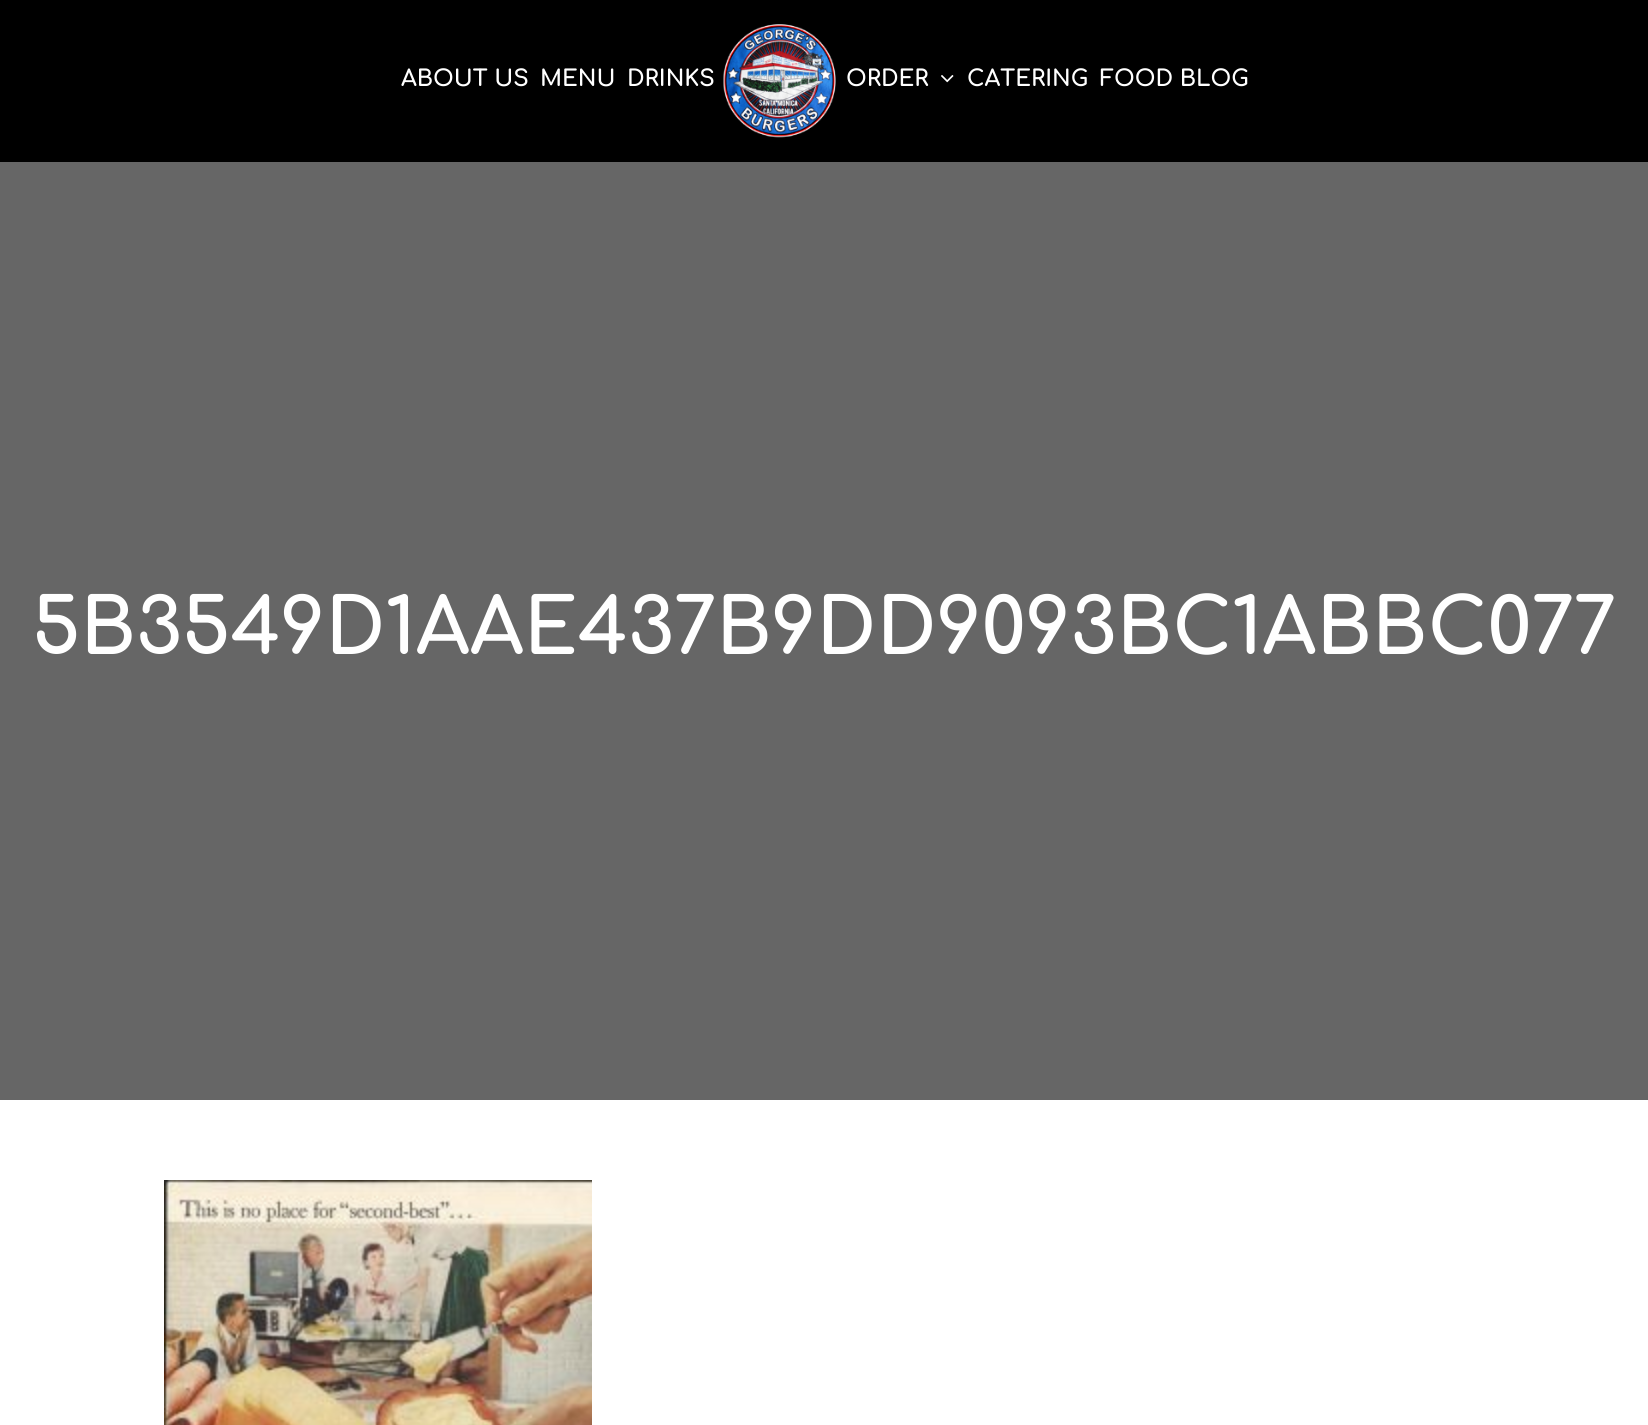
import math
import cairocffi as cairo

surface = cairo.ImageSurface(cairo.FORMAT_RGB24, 1648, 1425)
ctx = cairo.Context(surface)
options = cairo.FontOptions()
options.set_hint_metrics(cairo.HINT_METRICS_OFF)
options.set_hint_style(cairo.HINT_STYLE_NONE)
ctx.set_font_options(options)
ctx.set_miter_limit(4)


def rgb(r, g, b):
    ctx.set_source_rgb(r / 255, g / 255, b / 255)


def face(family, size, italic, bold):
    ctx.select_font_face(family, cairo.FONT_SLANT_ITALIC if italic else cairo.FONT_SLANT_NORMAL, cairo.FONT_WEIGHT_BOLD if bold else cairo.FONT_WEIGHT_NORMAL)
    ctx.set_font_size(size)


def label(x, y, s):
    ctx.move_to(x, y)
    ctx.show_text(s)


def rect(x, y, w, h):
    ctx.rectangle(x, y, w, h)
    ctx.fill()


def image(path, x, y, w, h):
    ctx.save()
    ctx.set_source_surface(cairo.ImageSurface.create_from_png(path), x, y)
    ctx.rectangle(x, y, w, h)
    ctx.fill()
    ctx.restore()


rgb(255, 255, 255)
ctx.paint()
rgb(0, 0, 0)
rect(0, 0, 1648, 162)
face('Comfortaa', 22.5, 0, 1)
rgb(255, 255, 255)
label(401, 86, 'ABOUT US')
label(540, 86, 'MENU')
label(627, 86, 'DRINKS')
image('image0.png', 723, 24, 113, 114)
label(846, 86, 'ORDER')
image('image1.png', 941, 75, 13, 8)
label(967, 86, 'CATERING')
label(1100, 86, 'FOOD BLOG')
rgb(102, 102, 102)
rect(0, 162, 1648, 938)
face('Comfortaa', 76.9, 0, 1)
rgb(255, 255, 255)
label(32, 654, '5B3549D1AAE437B9DD9093BC1ABBC077')
image('image2.png', 164, 1180, 428, 245)
surface.write_to_png('render.png')
